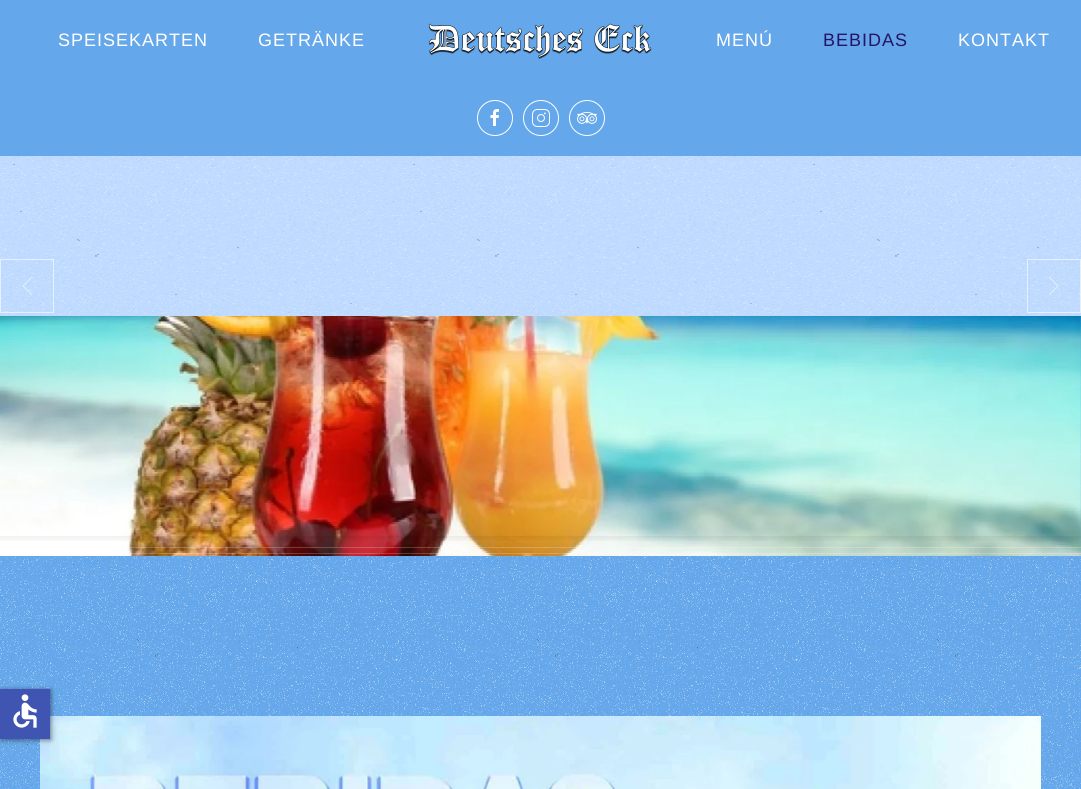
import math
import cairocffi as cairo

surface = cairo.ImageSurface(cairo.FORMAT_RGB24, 1081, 789)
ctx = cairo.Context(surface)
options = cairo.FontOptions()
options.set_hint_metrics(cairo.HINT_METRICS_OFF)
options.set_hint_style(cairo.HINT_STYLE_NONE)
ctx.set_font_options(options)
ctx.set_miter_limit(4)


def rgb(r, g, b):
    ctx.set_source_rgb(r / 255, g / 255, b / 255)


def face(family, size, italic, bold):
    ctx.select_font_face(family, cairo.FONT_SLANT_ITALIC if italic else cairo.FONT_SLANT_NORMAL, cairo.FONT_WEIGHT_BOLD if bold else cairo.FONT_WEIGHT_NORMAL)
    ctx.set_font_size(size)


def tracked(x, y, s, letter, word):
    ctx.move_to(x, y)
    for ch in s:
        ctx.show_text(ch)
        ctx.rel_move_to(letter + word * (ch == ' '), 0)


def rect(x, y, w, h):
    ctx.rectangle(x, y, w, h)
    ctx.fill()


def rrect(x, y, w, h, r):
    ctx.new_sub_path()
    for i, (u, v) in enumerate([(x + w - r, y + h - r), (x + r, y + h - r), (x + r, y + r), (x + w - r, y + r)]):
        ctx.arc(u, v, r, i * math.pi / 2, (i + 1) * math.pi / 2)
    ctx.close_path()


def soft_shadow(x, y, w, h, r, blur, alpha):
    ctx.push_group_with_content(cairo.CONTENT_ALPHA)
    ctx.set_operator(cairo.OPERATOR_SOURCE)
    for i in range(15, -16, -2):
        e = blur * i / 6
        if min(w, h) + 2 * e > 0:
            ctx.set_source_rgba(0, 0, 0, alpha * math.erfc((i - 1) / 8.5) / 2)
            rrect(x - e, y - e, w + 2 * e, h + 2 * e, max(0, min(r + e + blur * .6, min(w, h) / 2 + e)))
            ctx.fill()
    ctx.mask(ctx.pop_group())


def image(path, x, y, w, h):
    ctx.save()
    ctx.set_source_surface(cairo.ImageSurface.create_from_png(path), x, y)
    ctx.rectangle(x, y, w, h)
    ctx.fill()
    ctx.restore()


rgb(100, 167, 235)
ctx.paint()
rgb(190, 218, 255)
rect(0, 156, 1081, 160)
image('image0.png', 0, 156, 1081, 160)
image('image1.png', 1080, 320, 1, 234)
image('image2.png', 0, 316, 1081, 240)
ctx.arc(495, 118, 17.5, 0, 2 * math.pi)
rgb(255, 255, 255)
ctx.set_line_width(1)
ctx.stroke()
image('image6.png', 490, 109, 9, 17)
ctx.arc(541, 118, 17.5, 0, 2 * math.pi)
ctx.stroke()
image('image7.png', 532, 109, 18, 18)
ctx.arc(587, 118, 17.5, 0, 2 * math.pi)
ctx.stroke()
image('image8.png', 577, 112, 20, 12)
ctx.save()
ctx.rectangle(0, 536, 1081, 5)
ctx.clip()
rgb(0, 0, 0)
soft_shadow(0, 38, 1081, 500, 0, 4, 0.08)
ctx.restore()
ctx.rectangle(-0.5, 26.5, 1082, 527)
ctx.set_source_rgba(1, 1, 1, 0.2)
ctx.stroke()
ctx.rectangle(-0.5, 20.5, 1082, 527)
ctx.stroke()
ctx.rectangle(0.5, 259.5, 53, 53)
ctx.set_source_rgba(1, 1, 1, 0.6)
ctx.stroke()
ctx.new_path()
ctx.move_to(32, 277)
ctx.line_to(23, 286)
ctx.line_to(32, 295)
ctx.set_source_rgba(1, 1, 1, 0.5)
ctx.set_line_width(1.1)
ctx.stroke()
ctx.rectangle(1027.5, 259.5, 53, 53)
ctx.set_source_rgba(1, 1, 1, 0.6)
ctx.set_line_width(1)
ctx.stroke()
ctx.new_path()
ctx.move_to(1049, 295)
ctx.line_to(1058, 286)
ctx.line_to(1049, 277)
ctx.set_source_rgba(1, 1, 1, 0.5)
ctx.set_line_width(1.1)
ctx.stroke()
image('image3.png', 0, 556, 1081, 233)
image('image4.png', 40, 716, 1001, 73)
rgb(100, 167, 235)
rect(0, 20, 1081, 16)
face('Liberation Sans', 18, 0, 0)
rgb(255, 255, 255)
tracked(58, 46, 'SPEISEKARTEN', 1, 0)
tracked(258, 46, 'GETRÄNKE', 1, 0)
image('image5.png', 428, 23, 224, 36)
tracked(716, 46, 'MENÚ', 1, 0)
rgb(38, 20, 103)
tracked(823, 46, 'BEBIDAS', 1, 0)
rgb(255, 255, 255)
tracked(958, 46, 'KONTAKT', 1, 0)
rgb(0, 0, 0)
soft_shadow(1, 690, 50, 50, 0, 2.5, 0.5)
rgb(64, 84, 178)
rect(0, 689, 50, 50)
image('image9.png', 13, 694, 24, 34)
surface.write_to_png('render.png')
